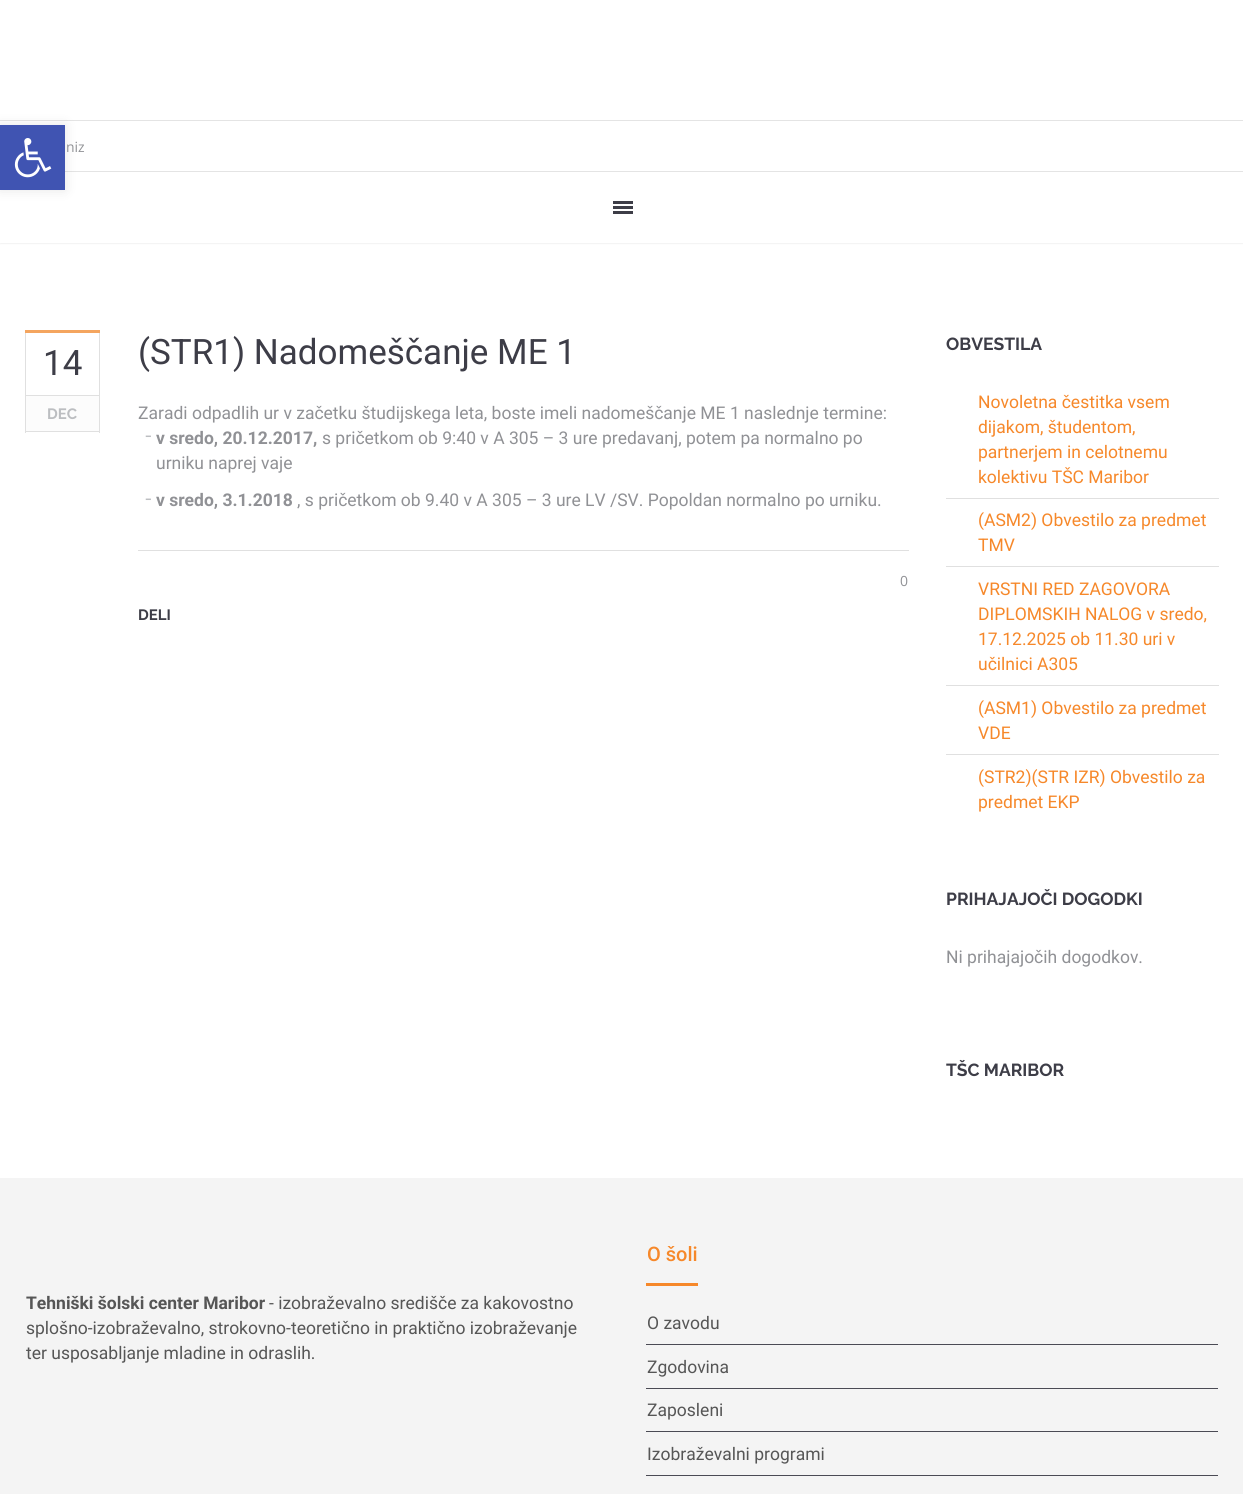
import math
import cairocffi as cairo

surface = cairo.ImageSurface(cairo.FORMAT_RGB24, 1243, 1494)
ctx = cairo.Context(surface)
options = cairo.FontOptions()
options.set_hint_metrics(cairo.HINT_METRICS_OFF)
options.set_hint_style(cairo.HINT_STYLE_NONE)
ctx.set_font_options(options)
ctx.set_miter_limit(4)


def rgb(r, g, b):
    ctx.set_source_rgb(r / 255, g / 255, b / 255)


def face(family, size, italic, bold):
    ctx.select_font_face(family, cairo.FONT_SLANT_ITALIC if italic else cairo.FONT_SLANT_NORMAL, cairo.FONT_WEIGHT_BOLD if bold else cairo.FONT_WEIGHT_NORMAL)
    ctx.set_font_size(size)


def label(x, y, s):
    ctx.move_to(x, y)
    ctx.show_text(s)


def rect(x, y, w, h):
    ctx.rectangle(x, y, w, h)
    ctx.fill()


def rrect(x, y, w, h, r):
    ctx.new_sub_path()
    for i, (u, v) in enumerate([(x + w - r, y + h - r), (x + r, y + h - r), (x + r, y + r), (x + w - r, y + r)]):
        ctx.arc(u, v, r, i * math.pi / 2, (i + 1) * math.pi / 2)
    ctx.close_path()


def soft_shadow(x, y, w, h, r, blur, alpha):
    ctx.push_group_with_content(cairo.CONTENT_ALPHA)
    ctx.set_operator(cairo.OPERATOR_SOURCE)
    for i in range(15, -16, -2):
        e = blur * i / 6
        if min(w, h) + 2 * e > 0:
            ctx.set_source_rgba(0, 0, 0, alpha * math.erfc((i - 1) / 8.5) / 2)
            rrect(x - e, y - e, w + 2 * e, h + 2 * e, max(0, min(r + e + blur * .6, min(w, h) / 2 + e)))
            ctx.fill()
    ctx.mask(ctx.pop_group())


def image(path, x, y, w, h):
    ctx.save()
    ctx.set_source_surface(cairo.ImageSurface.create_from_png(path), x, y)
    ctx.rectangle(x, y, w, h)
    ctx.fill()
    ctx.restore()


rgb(255, 255, 255)
ctx.paint()
ctx.save()
ctx.set_fill_rule(cairo.FILL_RULE_EVEN_ODD)
ctx.new_path()
ctx.move_to(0, 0)
ctx.line_to(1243, 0)
ctx.line_to(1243, 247)
ctx.line_to(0, 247)
ctx.close_path()
ctx.move_to(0, -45)
ctx.line_to(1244, -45)
ctx.line_to(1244, 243)
ctx.line_to(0, 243)
ctx.close_path()
ctx.clip()
rgb(0, 0, 0)
soft_shadow(0, -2, 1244, 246, 0, 0.5, 0.05)
ctx.restore()
rgb(228, 228, 228)
rect(0, 120, 1243, 1)
rect(65, 171, 1178, 1)
rgb(0, 0, 0)
soft_shadow(0, 125, 65, 65, 0, 6, 0.1)
rgb(64, 84, 178)
rect(0, 125, 65, 65)
image('image0.png', 14, 138, 38, 40)
ctx.set_source_rgba(1, 1, 1, 0.9)
rect(0, 242, 1243, 1)
face('Open Sans', 14, 0, 0)
rgb(144, 145, 149)
label(66, 152, 'niz')
rgb(61, 61, 71)
rect(613, 201, 20, 3)
rect(613, 211, 20, 3)
rect(613, 206, 20, 3)
rgb(244, 165, 95)
rect(25, 330, 75, 3)
rgb(224, 224, 224)
rect(99, 333, 1, 100)
rect(25, 431, 75, 1)
rect(25, 333, 1, 100)
face('Roboto', 35, 0, 0)
rgb(61, 61, 71)
label(43, 375, '14')
rgb(252, 252, 252)
rect(26, 396, 73, 35)
rgb(224, 224, 224)
rect(26, 395, 73, 1)
face('Raleway', 15, 0, 1)
rgb(188, 190, 193)
label(47, 419, 'DEC')
face('Roboto', 35, 0, 0)
rgb(61, 61, 71)
label(138, 364, '(STR1) Nadomeščanje ME 1')
face('Roboto', 17.5, 0, 0)
rgb(144, 145, 149)
label(138, 419, 'Zaradi odpadlih ur v začetku študijskega leta, boste imeli nadomeščanje ME 1 naslednje termine:')
face('Liberation Serif', 20, 0, 0)
rgb(188, 190, 193)
label(145, 441, '-')
face('Roboto', 17.5, 0, 1)
rgb(144, 145, 149)
label(156, 444, 'v sredo, 20.12.2017,')
face('Roboto', 17.5, 0, 0)
label(322, 444, 's pričetkom ob 9:40 v A 305 – 3 ure predavanj, potem pa normalno po')
label(156, 469, 'urniku naprej vaje')
face('Liberation Serif', 20, 0, 0)
rgb(188, 190, 193)
label(145, 504, '-')
face('Roboto', 17.5, 0, 1)
rgb(144, 145, 149)
label(156, 506, 'v sredo, 3.1.2018')
face('Roboto', 17.5, 0, 0)
label(297, 506, ', s pričetkom ob 9.40 v A 305 – 3 ure LV /SV. Popoldan normalno po urniku.')
rgb(224, 224, 224)
rect(138, 550, 771, 1)
face('Open Sans', 14, 0, 0)
rgb(144, 145, 149)
label(900, 586, '0')
face('Raleway', 15, 0, 1)
rgb(61, 61, 71)
label(138, 620, 'DELI')
face('Raleway', 17.5, 0, 1)
label(946, 350, 'OBVESTILA')
face('Roboto', 17.5, 0, 0)
rgb(246, 136, 42)
label(978, 408, 'Novoletna čestitka vsem')
label(978, 433, 'dijakom, študentom,')
label(978, 458, 'partnerjem in celotnemu')
label(978, 483, 'kolektivu TŠC Maribor')
rgb(224, 224, 224)
rect(946, 498, 273, 1)
rgb(246, 136, 42)
label(978, 526, '(ASM2) Obvestilo za predmet')
label(978, 551, 'TMV')
rgb(224, 224, 224)
rect(946, 566, 273, 1)
rgb(246, 136, 42)
label(978, 595, 'VRSTNI RED ZAGOVORA')
label(978, 620, 'DIPLOMSKIH NALOG v sredo,')
label(978, 645, '17.12.2025 ob 11.30 uri v')
label(978, 670, 'učilnici A305')
rgb(224, 224, 224)
rect(946, 685, 273, 1)
rgb(246, 136, 42)
label(978, 714, '(ASM1) Obvestilo za predmet')
label(978, 739, 'VDE')
rgb(224, 224, 224)
rect(946, 754, 273, 1)
rgb(246, 136, 42)
label(978, 783, '(STR2)(STR IZR) Obvestilo za')
label(978, 808, 'predmet EKP')
face('Raleway', 17.5, 0, 1)
rgb(61, 61, 71)
label(946, 905, 'PRIHAJAJOČI DOGODKI')
face('Roboto', 17.5, 0, 0)
rgb(144, 145, 149)
label(946, 963, 'Ni prihajajočih dogodkov.')
face('Raleway', 17.5, 0, 1)
rgb(61, 61, 71)
label(946, 1076, 'TŠC MARIBOR')
rgb(244, 244, 244)
rect(0, 1178, 1243, 316)
face('Roboto', 17.5, 0, 1)
rgb(86, 86, 86)
label(26, 1309, 'Tehniški šolski center Maribor')
face('Roboto', 17.5, 0, 0)
label(269, 1309, '- izobraževalno središče za kakovostno')
label(26, 1334, 'splošno-izobraževalno, strokovno-teoretično in praktično izobraževanje')
label(26, 1359, 'ter usposabljanje mladine in odraslih.')
rgb(246, 136, 42)
rect(646, 1283, 52, 3)
face('Roboto Medium', 20, 0, 0)
label(647, 1261, 'O šoli')
face('Roboto', 17.5, 0, 0)
rgb(86, 86, 86)
label(647, 1329, 'O zavodu')
rgb(75, 75, 84)
rect(646, 1344, 572, 1)
rgb(86, 86, 86)
label(647, 1373, 'Zgodovina')
rgb(75, 75, 84)
rect(646, 1388, 572, 1)
rgb(86, 86, 86)
label(647, 1416, 'Zaposleni')
rgb(75, 75, 84)
rect(646, 1431, 572, 1)
rgb(86, 86, 86)
label(647, 1460, 'Izobraževalni programi')
rgb(75, 75, 84)
rect(646, 1475, 572, 1)
surface.write_to_png('render.png')
